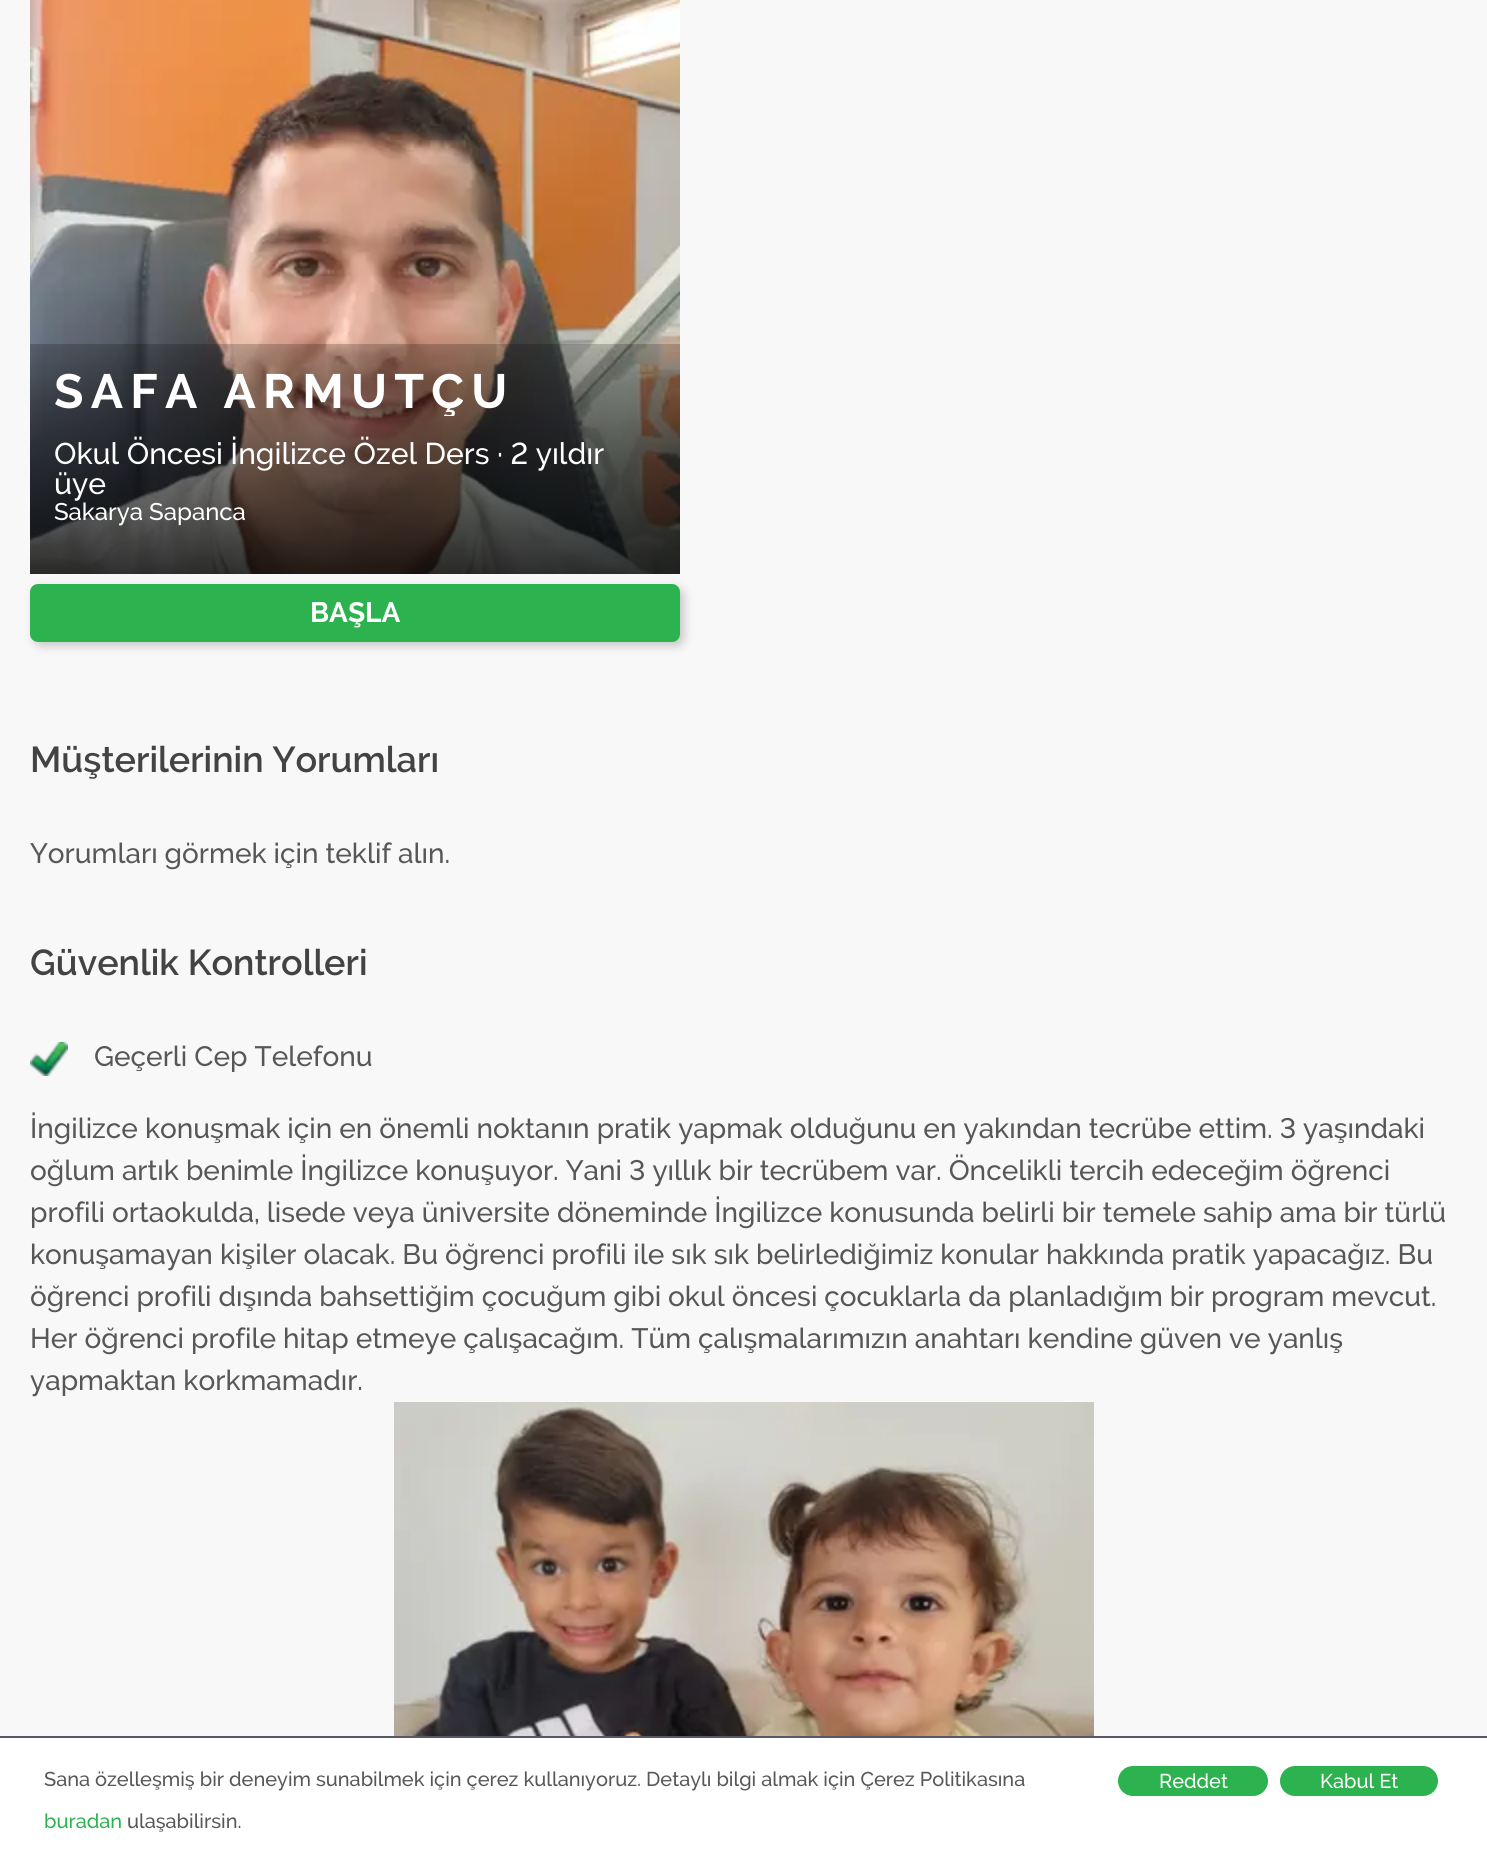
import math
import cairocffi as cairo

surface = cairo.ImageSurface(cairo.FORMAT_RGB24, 1487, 1869)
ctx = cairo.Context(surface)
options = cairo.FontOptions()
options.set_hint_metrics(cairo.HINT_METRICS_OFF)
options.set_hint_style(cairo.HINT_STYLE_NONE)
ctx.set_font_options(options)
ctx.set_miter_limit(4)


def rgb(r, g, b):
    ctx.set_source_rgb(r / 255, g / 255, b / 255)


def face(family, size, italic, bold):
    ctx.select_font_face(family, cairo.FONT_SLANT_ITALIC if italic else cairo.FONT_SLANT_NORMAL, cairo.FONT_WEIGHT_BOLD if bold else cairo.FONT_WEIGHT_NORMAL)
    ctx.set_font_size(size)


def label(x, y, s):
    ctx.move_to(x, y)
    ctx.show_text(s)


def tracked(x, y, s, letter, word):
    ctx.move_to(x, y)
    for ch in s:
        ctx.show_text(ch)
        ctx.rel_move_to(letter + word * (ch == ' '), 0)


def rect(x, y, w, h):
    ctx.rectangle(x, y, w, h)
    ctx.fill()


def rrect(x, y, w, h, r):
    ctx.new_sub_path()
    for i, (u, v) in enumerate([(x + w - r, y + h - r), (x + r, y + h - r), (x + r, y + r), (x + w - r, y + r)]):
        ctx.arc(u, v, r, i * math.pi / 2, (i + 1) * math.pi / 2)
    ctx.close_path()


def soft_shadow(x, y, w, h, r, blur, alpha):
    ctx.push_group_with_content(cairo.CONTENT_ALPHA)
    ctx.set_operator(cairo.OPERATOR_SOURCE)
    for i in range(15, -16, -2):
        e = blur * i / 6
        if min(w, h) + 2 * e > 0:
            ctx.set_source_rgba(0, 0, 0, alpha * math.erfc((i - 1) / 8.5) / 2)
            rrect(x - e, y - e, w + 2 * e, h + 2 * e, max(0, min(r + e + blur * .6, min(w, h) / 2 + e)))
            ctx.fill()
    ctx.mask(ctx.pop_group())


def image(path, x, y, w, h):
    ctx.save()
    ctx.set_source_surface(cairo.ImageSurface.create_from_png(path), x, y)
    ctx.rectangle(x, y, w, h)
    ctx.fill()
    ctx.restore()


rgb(248, 248, 248)
ctx.paint()
image('image0.png', 30, 0, 650, 574)
ctx.save()
ctx.rectangle(54, 368, 602, 48)
ctx.clip()
face('Raleway', 48, 0, 1)
rgb(255, 255, 255)
tracked(54, 408, 'SAFA ARMUTÇU', 7.25, 0)
ctx.restore()
face('Raleway Medium', 30, 0, 0)
rgb(255, 255, 255)
label(54, 464, 'Okul Öncesi İngilizce Özel Ders · 2 yıldır')
label(54, 494, 'üye')
face('Raleway Medium', 24, 0, 0)
label(54, 520, 'Sakarya Sapanca')
rgb(0, 0, 0)
soft_shadow(34, 588, 650, 58, 8, 5, 0.2)
rgb(44, 179, 79)
rrect(30, 584, 650, 58, 8)
ctx.fill()
face('Raleway', 28, 0, 1)
rgb(255, 255, 255)
label(310, 622, 'BAŞLA')
face('Raleway SemiBold', 36, 0, 0)
rgb(67, 67, 67)
label(30, 772, 'Müşterilerinin Yorumları')
face('Raleway Medium', 28, 0, 0)
rgb(87, 87, 87)
label(30, 863, 'Yorumları görmek için teklif alın.')
face('Raleway SemiBold', 36, 0, 0)
rgb(67, 67, 67)
label(30, 975, 'Güvenlik Kontrolleri')
image('image1.png', 30, 1042, 38, 34)
face('Raleway Medium', 28, 0, 0)
rgb(87, 87, 87)
label(94, 1066, 'Geçerli Cep Telefonu')
label(30, 1138, 'İngilizce konuşmak için en önemli noktanın pratik yapmak olduğunu en yakından tecrübe ettim. 3 yaşındaki')
label(30, 1180, 'oğlum artık benimle İngilizce konuşuyor. Yani 3 yıllık bir tecrübem var. Öncelikli tercih edeceğim öğrenci')
label(30, 1222, 'profili ortaokulda, lisede veya üniversite döneminde İngilizce konusunda belirli bir temele sahip ama bir türlü')
label(30, 1264, 'konuşamayan kişiler olacak. Bu öğrenci profili ile sık sık belirlediğimiz konular hakkında pratik yapacağız. Bu')
label(30, 1306, 'öğrenci profili dışında bahsettiğim çocuğum gibi okul öncesi çocuklarla da planladığım bir program mevcut.')
label(30, 1348, 'Her öğrenci profile hitap etmeye çalışacağım. Tüm çalışmalarımızın anahtarı kendine güven ve yanlış')
label(30, 1390, 'yapmaktan korkmamadır.')
image('image2.png', 394, 1402, 700, 334)
rgb(255, 255, 255)
rect(0, 1738, 1487, 131)
rgb(88, 89, 101)
rect(0, 1736, 1487, 2)
face('Raleway Medium', 20, 0, 0)
rgb(87, 87, 87)
label(44, 1786, 'Sana özelleşmiş bir deneyim sunabilmek için çerez kullanıyoruz. Detaylı bilgi almak için Çerez Politikasına')
rgb(44, 179, 79)
label(44, 1828, 'buradan')
rgb(87, 87, 87)
label(127, 1828, 'ulaşabilirsin.')
rgb(44, 179, 79)
rrect(1118, 1766, 150, 30, 15)
ctx.fill()
rgb(255, 255, 255)
label(1159, 1788, 'Reddet')
rgb(44, 179, 79)
rrect(1280, 1766, 158, 30, 15)
ctx.fill()
rgb(255, 255, 255)
label(1320, 1788, 'Kabul Et')
surface.write_to_png('render.png')
